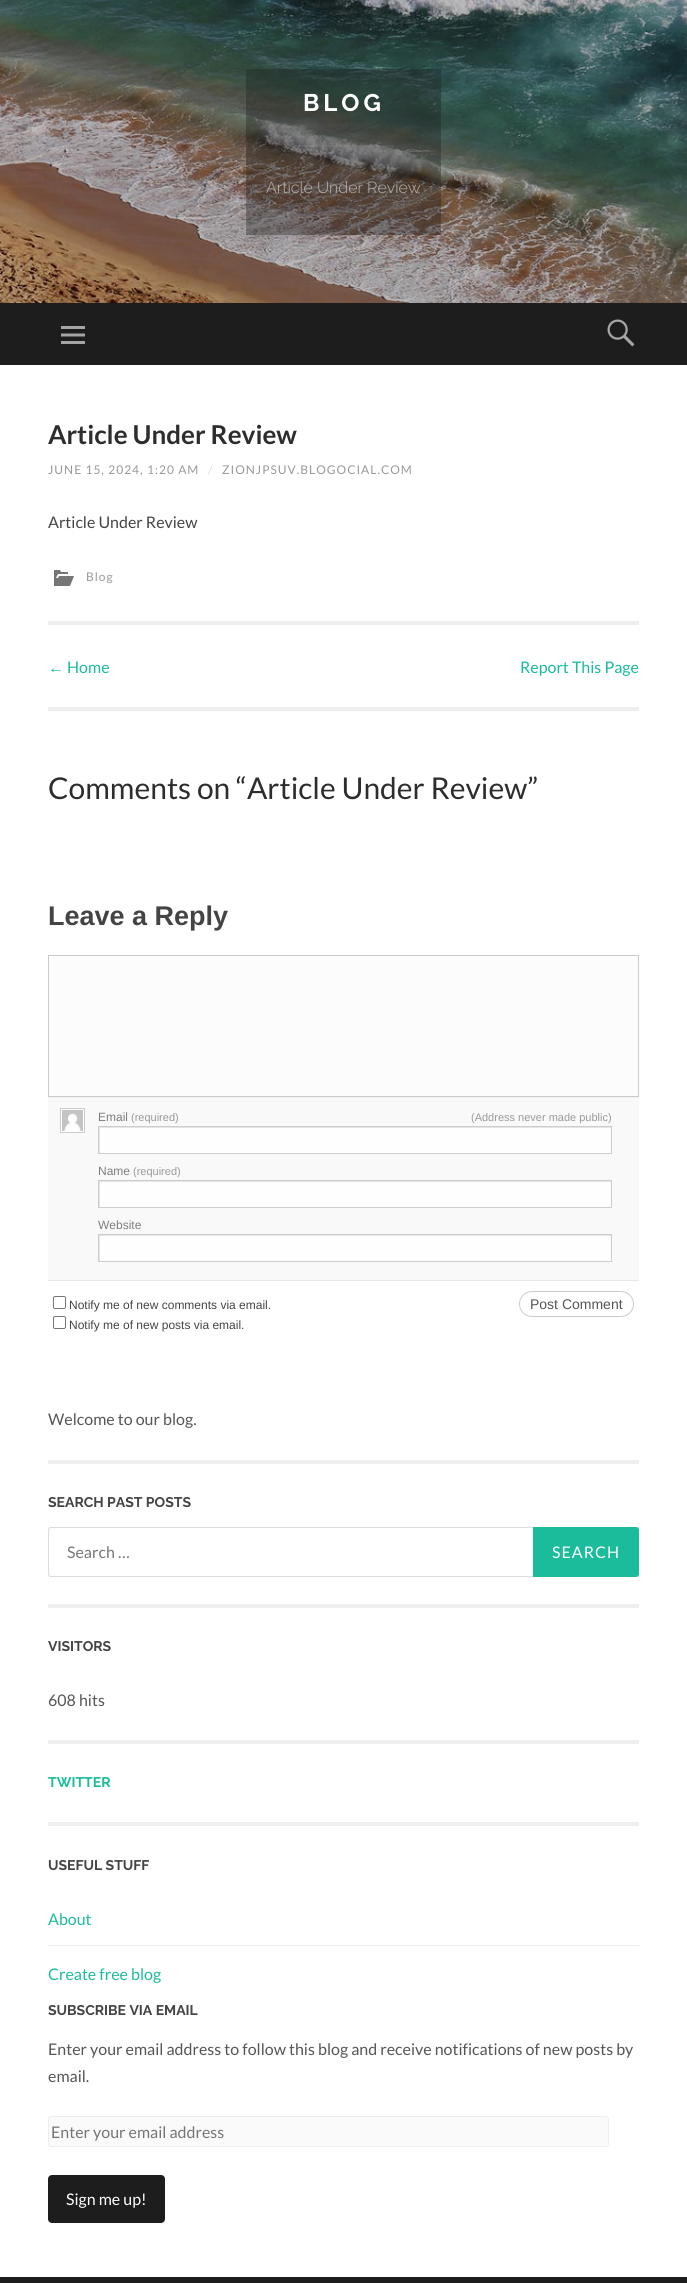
import math
import cairocffi as cairo

surface = cairo.ImageSurface(cairo.FORMAT_RGB24, 687, 2283)
ctx = cairo.Context(surface)
options = cairo.FontOptions()
options.set_hint_metrics(cairo.HINT_METRICS_OFF)
options.set_hint_style(cairo.HINT_STYLE_NONE)
ctx.set_font_options(options)
ctx.set_miter_limit(4)


def rgb(r, g, b):
    ctx.set_source_rgb(r / 255, g / 255, b / 255)


def face(family, size, italic, bold):
    ctx.select_font_face(family, cairo.FONT_SLANT_ITALIC if italic else cairo.FONT_SLANT_NORMAL, cairo.FONT_WEIGHT_BOLD if bold else cairo.FONT_WEIGHT_NORMAL)
    ctx.set_font_size(size)


def label(x, y, s):
    ctx.move_to(x, y)
    ctx.show_text(s)


def tracked(x, y, s, letter, word):
    ctx.move_to(x, y)
    for ch in s:
        ctx.show_text(ch)
        ctx.rel_move_to(letter + word * (ch == ' '), 0)


def rect(x, y, w, h):
    ctx.rectangle(x, y, w, h)
    ctx.fill()


def rrect(x, y, w, h, r):
    ctx.new_sub_path()
    for i, (u, v) in enumerate([(x + w - r, y + h - r), (x + r, y + h - r), (x + r, y + r), (x + w - r, y + r)]):
        ctx.arc(u, v, r, i * math.pi / 2, (i + 1) * math.pi / 2)
    ctx.close_path()


def image(path, x, y, w, h):
    ctx.save()
    ctx.set_source_surface(cairo.ImageSurface.create_from_png(path), x, y)
    ctx.rectangle(x, y, w, h)
    ctx.fill()
    ctx.restore()


rgb(255, 255, 255)
ctx.paint()
image('image0.png', 0, 0, 687, 303)
ctx.set_source_rgba(0.114, 0.114, 0.114, 0.34)
rect(246, 69, 195, 166)
face('Raleway', 24, 0, 1)
rgb(255, 255, 255)
tracked(303, 111, 'BLOG', 4, 0)
ctx.set_source_rgba(1, 1, 1, 0.06)
rect(294, 145, 100, 2)
face('Raleway Light', 16, 0, 0)
rgb(188, 183, 179)
label(266, 193, 'Article Under Review')
rgb(29, 29, 29)
rect(0, 303, 687, 62)
image('image1.png', 61, 326, 24, 18)
image('image2.png', 607, 319, 28, 28)
face('Lato', 26, 0, 1)
rgb(45, 45, 45)
label(48, 444, 'Article Under Review')
face('Lato', 12, 0, 0)
rgb(153, 153, 153)
tracked(48, 474, 'JUNE 15, 2024, 1:20 AM', 1, 0)
rgb(221, 221, 221)
tracked(208, 474, '/', 1, 0)
rgb(153, 153, 153)
tracked(222, 474, 'ZIONJPSUV.BLOGOCIAL.COM', 1, 0)
face('Lato', 16, 0, 0)
rgb(68, 68, 68)
label(48, 528, 'Article Under Review')
image('image3.png', 54, 570, 20, 16)
face('Lato', 12, 0, 0)
rgb(153, 153, 153)
tracked(86, 581, 'Blog', 1, 0)
rgb(238, 238, 238)
rect(48, 621, 591, 4)
rect(48, 707, 591, 4)
face('Liberation Sans', 16, 0, 0)
rgb(26, 188, 156)
label(48, 673, '←')
face('Lato', 16, 0, 0)
label(67, 673, 'Home')
label(520, 673, 'Report This Page')
face('Lato', 30, 0, 0)
rgb(45, 45, 45)
label(48, 799, 'Comments on “Article Under Review”')
face('Liberation Sans', 27, 0, 1)
rgb(68, 68, 68)
label(48, 925, 'Leave a Reply')
rgb(252, 252, 252)
ctx.rectangle(48.5, 955.5, 590, 141)
ctx.fill_preserve()
rgb(202, 202, 202)
ctx.set_line_width(1)
ctx.stroke()
rgb(242, 242, 242)
rect(48, 1097, 591, 1)
rgb(249, 249, 249)
rect(48, 1098, 591, 182)
rgb(232, 232, 232)
rect(48, 1280, 591, 1)
rgb(255, 255, 255)
ctx.rectangle(60.5, 1108.5, 24, 24)
ctx.fill_preserve()
rgb(204, 204, 204)
ctx.stroke()
image('image4.png', 62, 1110, 21, 21)
face('Liberation Sans', 12, 0, 0)
rgb(125, 125, 125)
label(98, 1121, 'Email')
face('Liberation Sans', 11, 0, 0)
rgb(153, 153, 153)
label(131, 1121, '(required)')
label(471, 1121, '(Address never made public)')
rgb(254, 254, 254)
rect(100, 1128, 511, 25)
ctx.save()
ctx.rectangle(99, 1127, 512, 26)
ctx.clip()
rgb(229, 229, 229)
ctx.set_fill_rule(cairo.FILL_RULE_EVEN_ODD)
ctx.new_path()
ctx.move_to(0, 1028)
ctx.line_to(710, 1028)
ctx.line_to(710, 1252)
ctx.line_to(0, 1252)
ctx.close_path()
ctx.move_to(100, 1128)
ctx.line_to(612, 1128)
ctx.line_to(612, 1154)
ctx.line_to(100, 1154)
ctx.close_path()
ctx.fill()
ctx.restore()
ctx.rectangle(98.5, 1126.5, 513, 27)
rgb(205, 205, 205)
ctx.stroke()
face('Liberation Sans', 12, 0, 0)
rgb(125, 125, 125)
label(98, 1175, 'Name')
face('Liberation Sans', 11, 0, 0)
rgb(153, 153, 153)
label(133, 1175, '(required)')
rgb(254, 254, 254)
rect(100, 1182, 511, 25)
ctx.save()
ctx.rectangle(99, 1181, 512, 26)
ctx.clip()
rgb(229, 229, 229)
ctx.set_fill_rule(cairo.FILL_RULE_EVEN_ODD)
ctx.new_path()
ctx.move_to(0, 1082)
ctx.line_to(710, 1082)
ctx.line_to(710, 1306)
ctx.line_to(0, 1306)
ctx.close_path()
ctx.move_to(100, 1182)
ctx.line_to(612, 1182)
ctx.line_to(612, 1208)
ctx.line_to(100, 1208)
ctx.close_path()
ctx.fill()
ctx.restore()
ctx.rectangle(98.5, 1180.5, 513, 27)
rgb(205, 205, 205)
ctx.stroke()
face('Liberation Sans', 12, 0, 0)
rgb(125, 125, 125)
label(98, 1229, 'Website')
rgb(254, 254, 254)
rect(100, 1236, 511, 25)
ctx.save()
ctx.rectangle(99, 1235, 512, 26)
ctx.clip()
rgb(229, 229, 229)
ctx.set_fill_rule(cairo.FILL_RULE_EVEN_ODD)
ctx.new_path()
ctx.move_to(0, 1136)
ctx.line_to(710, 1136)
ctx.line_to(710, 1360)
ctx.line_to(0, 1360)
ctx.close_path()
ctx.move_to(100, 1236)
ctx.line_to(612, 1236)
ctx.line_to(612, 1262)
ctx.line_to(100, 1262)
ctx.close_path()
ctx.fill()
ctx.restore()
ctx.rectangle(98.5, 1234.5, 513, 27)
rgb(205, 205, 205)
ctx.stroke()
rrect(53.5, 1296.5, 12, 12, 1.5)
rgb(118, 118, 118)
ctx.stroke()
rgb(68, 68, 68)
label(69, 1309, 'Notify me of new comments via email.')
rrect(53.5, 1316.5, 12, 12, 1.5)
rgb(118, 118, 118)
ctx.stroke()
rgb(68, 68, 68)
label(69, 1329, 'Notify me of new posts via email.')
rrect(519.5, 1291.5, 114, 25, 12.5)
rgb(204, 204, 204)
ctx.stroke()
face('Liberation Sans', 14, 0, 0)
rgb(85, 85, 85)
label(530, 1309, 'Post Comment')
rgb(238, 238, 238)
rect(48, 1460, 591, 4)
face('Lato', 16, 0, 0)
rgb(85, 85, 85)
label(48, 1425, 'Welcome to our blog.')
rgb(238, 238, 238)
rect(48, 1604, 591, 4)
face('Raleway', 14, 0, 1)
rgb(68, 68, 68)
label(48, 1507, 'SEARCH PAST POSTS')
rgb(221, 221, 221)
ctx.set_fill_rule(cairo.FILL_RULE_EVEN_ODD)
ctx.new_path()
ctx.move_to(51, 1527)
ctx.line_to(633, 1527)
ctx.line_to(633, 1577)
ctx.line_to(51, 1577)
ctx.curve_to(49, 1577, 48, 1576, 48, 1574)
ctx.line_to(48, 1530)
ctx.curve_to(48, 1528, 49, 1527, 51, 1527)
ctx.close_path()
ctx.move_to(51, 1528)
ctx.line_to(633, 1528)
ctx.line_to(633, 1576)
ctx.line_to(51, 1576)
ctx.curve_to(50, 1576, 49, 1575, 49, 1574)
ctx.line_to(49, 1530)
ctx.curve_to(49, 1529, 50, 1528, 51, 1528)
ctx.close_path()
ctx.fill()
face('Lato', 16, 0, 0)
rgb(117, 117, 117)
label(67, 1558, 'Search …')
rgb(26, 188, 156)
ctx.new_path()
ctx.move_to(533.5, 1527.5)
ctx.line_to(636, 1527.5)
ctx.curve_to(637.5, 1527.5, 638.5, 1528.5, 638.5, 1530)
ctx.line_to(638.5, 1574)
ctx.curve_to(638.5, 1575.5, 637.5, 1576.5, 636, 1576.5)
ctx.line_to(533.5, 1576.5)
ctx.close_path()
ctx.fill_preserve()
ctx.stroke()
rgb(255, 255, 255)
tracked(552, 1558, 'SEARCH', 1, 0)
rgb(238, 238, 238)
rect(48, 1740, 591, 4)
face('Raleway', 14, 0, 1)
rgb(68, 68, 68)
label(48, 1651, 'VISITORS')
face('Lato', 16, 0, 0)
rgb(85, 85, 85)
label(48, 1706, '608 hits')
rgb(238, 238, 238)
rect(48, 1822, 591, 4)
face('Raleway', 14, 0, 1)
rgb(26, 188, 156)
label(48, 1787, 'TWITTER')
rgb(68, 68, 68)
label(48, 1870, 'USEFUL STUFF')
face('Lato', 16, 0, 0)
rgb(26, 188, 156)
label(48, 1925, 'About')
rgb(238, 238, 238)
rect(48, 1945, 591, 1)
rgb(26, 188, 156)
label(48, 1980, 'Create free blog')
face('Raleway', 14, 0, 1)
rgb(68, 68, 68)
label(48, 2015, 'SUBSCRIBE VIA EMAIL')
face('Lato', 16, 0, 0)
rgb(85, 85, 85)
label(48, 2055, 'Enter your email address to follow this blog and receive notifications of new posts by')
label(48, 2082, 'email.')
rgb(250, 250, 250)
rrect(48.5, 2116.5, 560, 30, 2.5)
ctx.fill_preserve()
rgb(238, 238, 238)
ctx.stroke()
rgb(117, 117, 117)
label(51, 2138, 'Enter your email address')
rgb(29, 29, 29)
rrect(48, 2175, 117, 48, 4)
ctx.fill()
rgb(255, 255, 255)
label(66, 2205, 'Sign me up!')
rgb(29, 29, 29)
rect(0, 2277, 687, 6)
surface.write_to_png('render.png')
